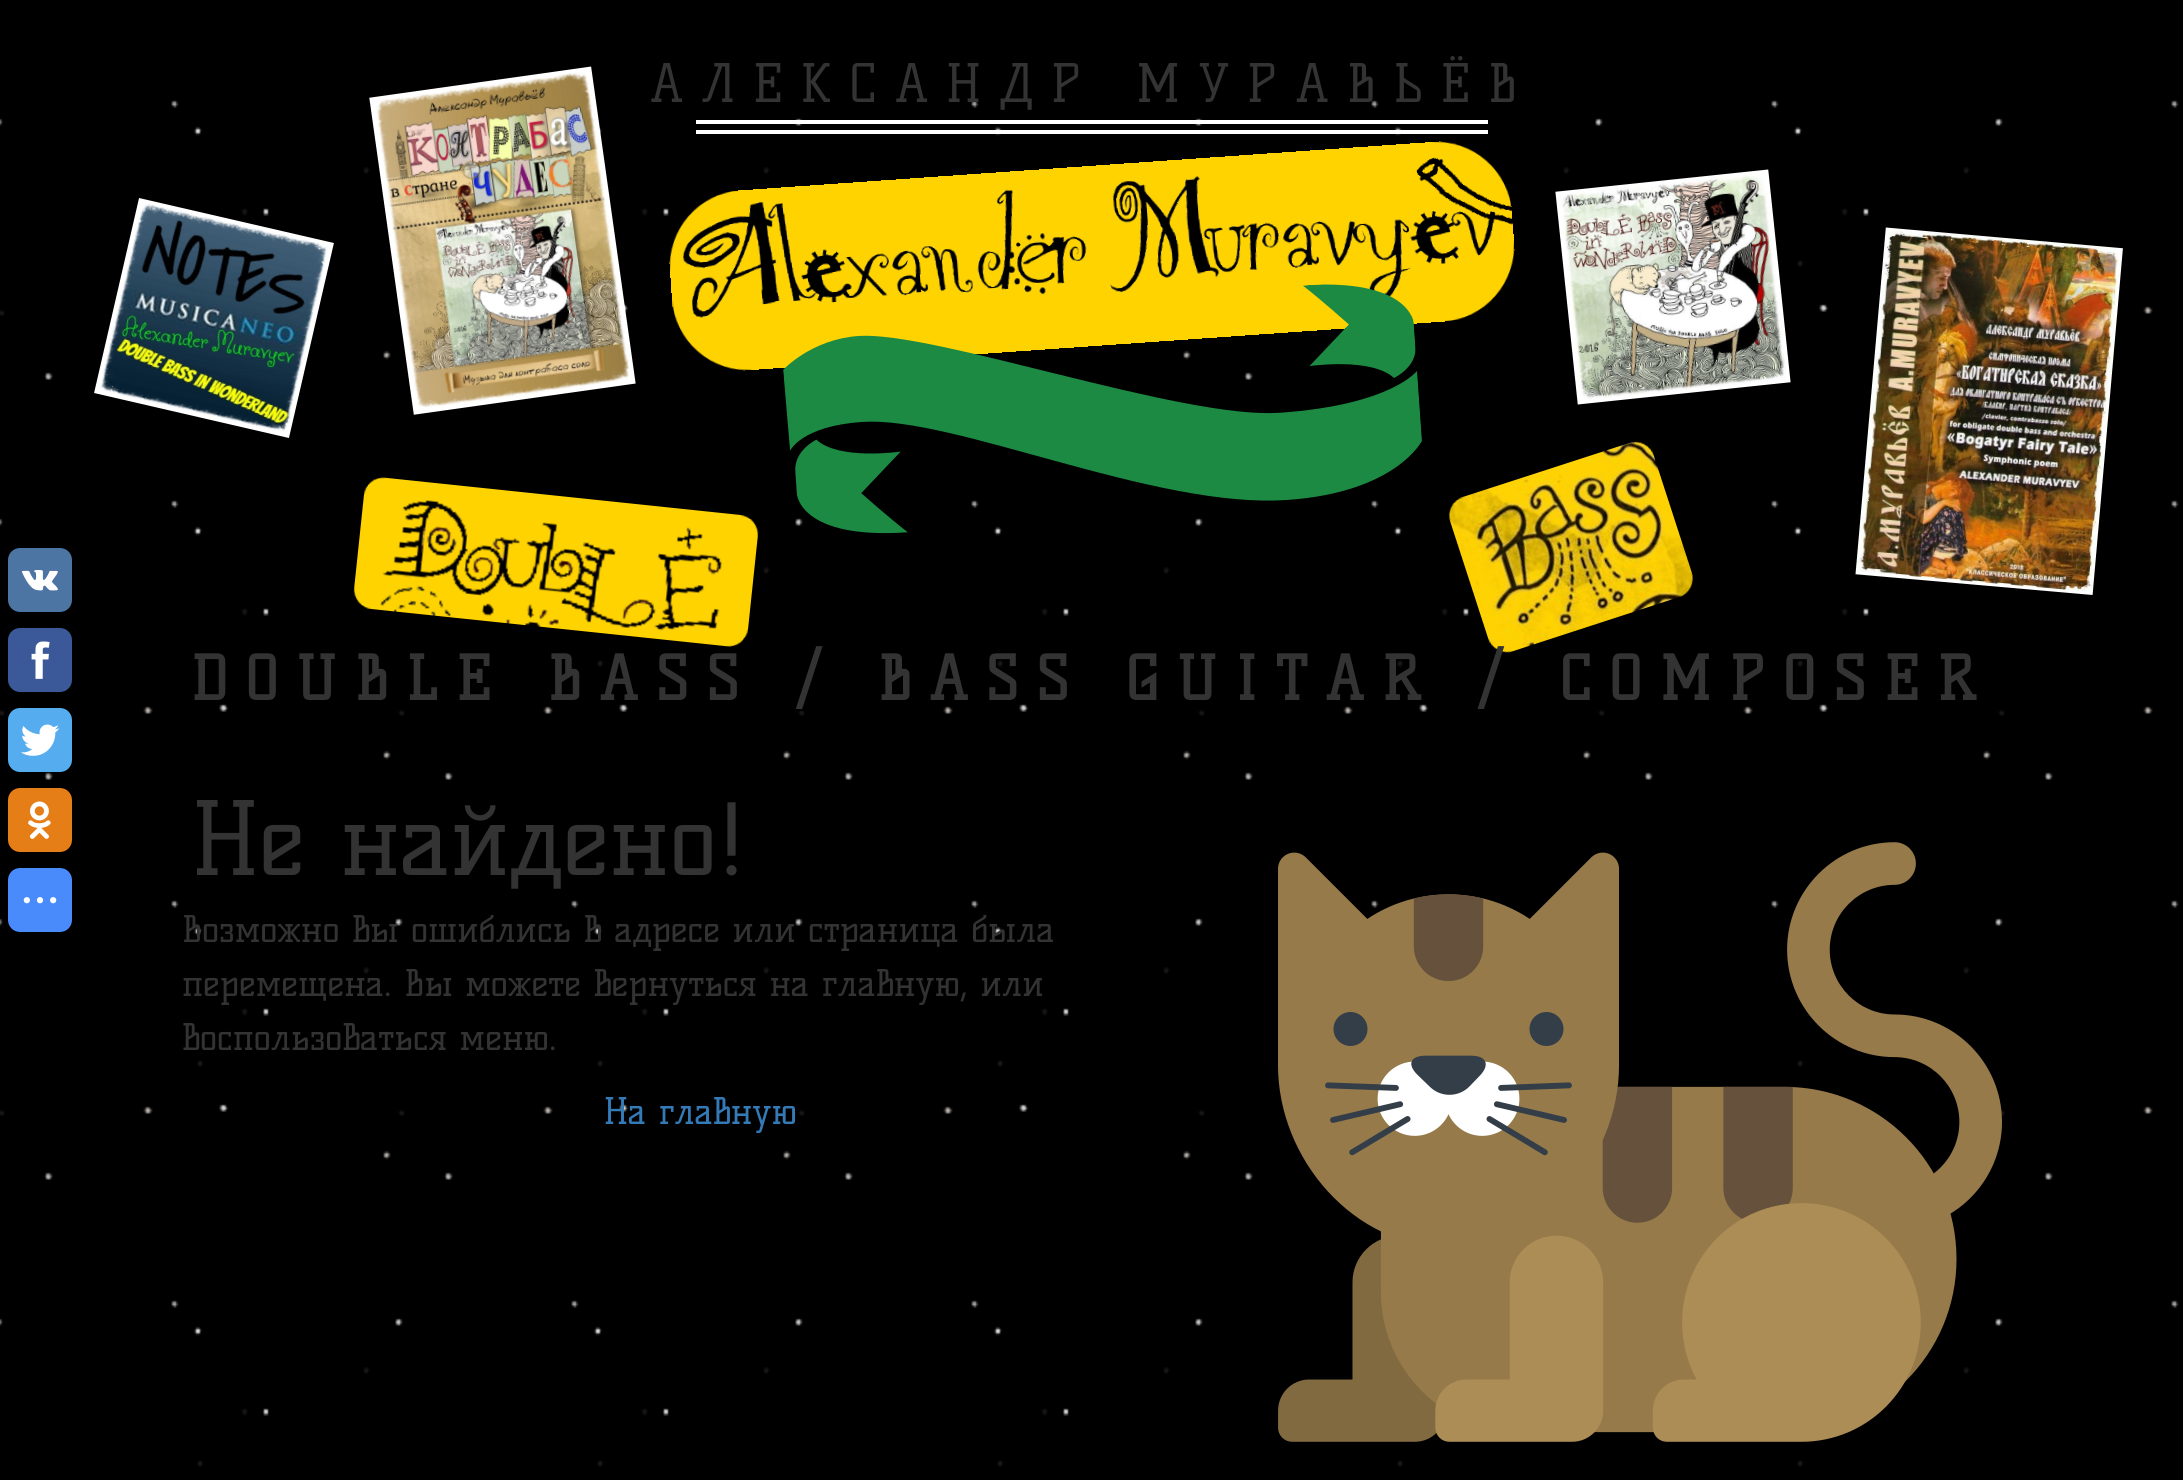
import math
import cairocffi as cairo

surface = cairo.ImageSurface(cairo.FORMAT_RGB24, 2183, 1480)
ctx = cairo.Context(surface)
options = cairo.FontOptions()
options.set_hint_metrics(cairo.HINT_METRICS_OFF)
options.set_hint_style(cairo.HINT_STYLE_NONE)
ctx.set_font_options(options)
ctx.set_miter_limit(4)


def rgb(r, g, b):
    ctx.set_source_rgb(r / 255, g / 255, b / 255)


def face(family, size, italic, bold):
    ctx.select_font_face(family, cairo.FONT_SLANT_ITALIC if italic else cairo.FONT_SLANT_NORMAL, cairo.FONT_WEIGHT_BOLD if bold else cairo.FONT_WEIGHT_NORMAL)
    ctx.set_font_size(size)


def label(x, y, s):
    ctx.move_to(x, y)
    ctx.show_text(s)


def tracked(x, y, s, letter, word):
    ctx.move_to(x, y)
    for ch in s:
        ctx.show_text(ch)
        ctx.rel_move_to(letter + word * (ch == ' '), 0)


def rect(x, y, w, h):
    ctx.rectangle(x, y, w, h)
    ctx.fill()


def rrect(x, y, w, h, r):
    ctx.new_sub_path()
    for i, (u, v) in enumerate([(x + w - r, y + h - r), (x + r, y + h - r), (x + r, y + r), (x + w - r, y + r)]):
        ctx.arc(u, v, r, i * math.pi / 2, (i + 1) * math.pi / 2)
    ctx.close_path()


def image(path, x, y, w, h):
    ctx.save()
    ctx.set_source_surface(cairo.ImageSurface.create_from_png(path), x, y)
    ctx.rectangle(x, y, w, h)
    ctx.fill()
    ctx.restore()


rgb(0, 0, 0)
ctx.paint()
image('image0.png', 0, 100, 2179, 1367)
rgb(77, 117, 163)
rrect(8, 548, 64, 64, 12)
ctx.fill()
image('image1.png', 21, 570, 37, 21)
rgb(59, 89, 152)
rrect(8, 628, 64, 64, 12)
ctx.fill()
image('image2.png', 31, 641, 19, 38)
rgb(85, 172, 238)
rrect(8, 708, 64, 64, 12)
ctx.fill()
image('image3.png', 21, 724, 39, 32)
rgb(230, 126, 23)
rrect(8, 788, 64, 64, 12)
ctx.fill()
image('image4.png', 28, 801, 23, 38)
rgb(73, 139, 250)
rrect(8, 868, 64, 64, 12)
ctx.fill()
image('image5.png', 23, 897, 34, 7)
face('Kelly Slab', 52, 0, 0)
rgb(51, 51, 51)
tracked(650, 102, 'АЛЕКСАНДР МУРАВЬЁВ', 18, 0)
rgb(255, 255, 255)
rect(696, 120, 792, 4)
rect(696, 130, 792, 4)
image('image6.png', 94, 198, 240, 240)
image('image7.png', 369, 66, 267, 349)
image('image8.png', 1555, 169, 236, 236)
image('image9.png', 1855, 227, 268, 368)
image('image10.png', 669, 141, 846, 230)
image('image11.png', 783, 284, 639, 250)
image('image12.png', 353, 477, 406, 170)
image('image13.png', 1448, 441, 246, 212)
face('Kelly Slab', 60, 0, 1)
rgb(51, 51, 51)
tracked(191, 700, 'DOUBLE BASS / BASS GUITAR / COMPOSER', 18, 0)
face('Kelly Slab', 100, 0, 0)
label(192, 875, 'Не найдено!')
face('Kelly Slab', 36, 0, 0)
label(182, 942, 'Возможно вы ошиблись в адресе или страница была')
label(182, 996, 'перемещена. Вы можете вернуться на главную, или')
label(182, 1050, 'воспользоваться меню.')
rgb(51, 122, 183)
label(604, 1124, 'На главную')
image('image14.png', 1278, 842, 724, 600)
surface.write_to_png('render.png')
